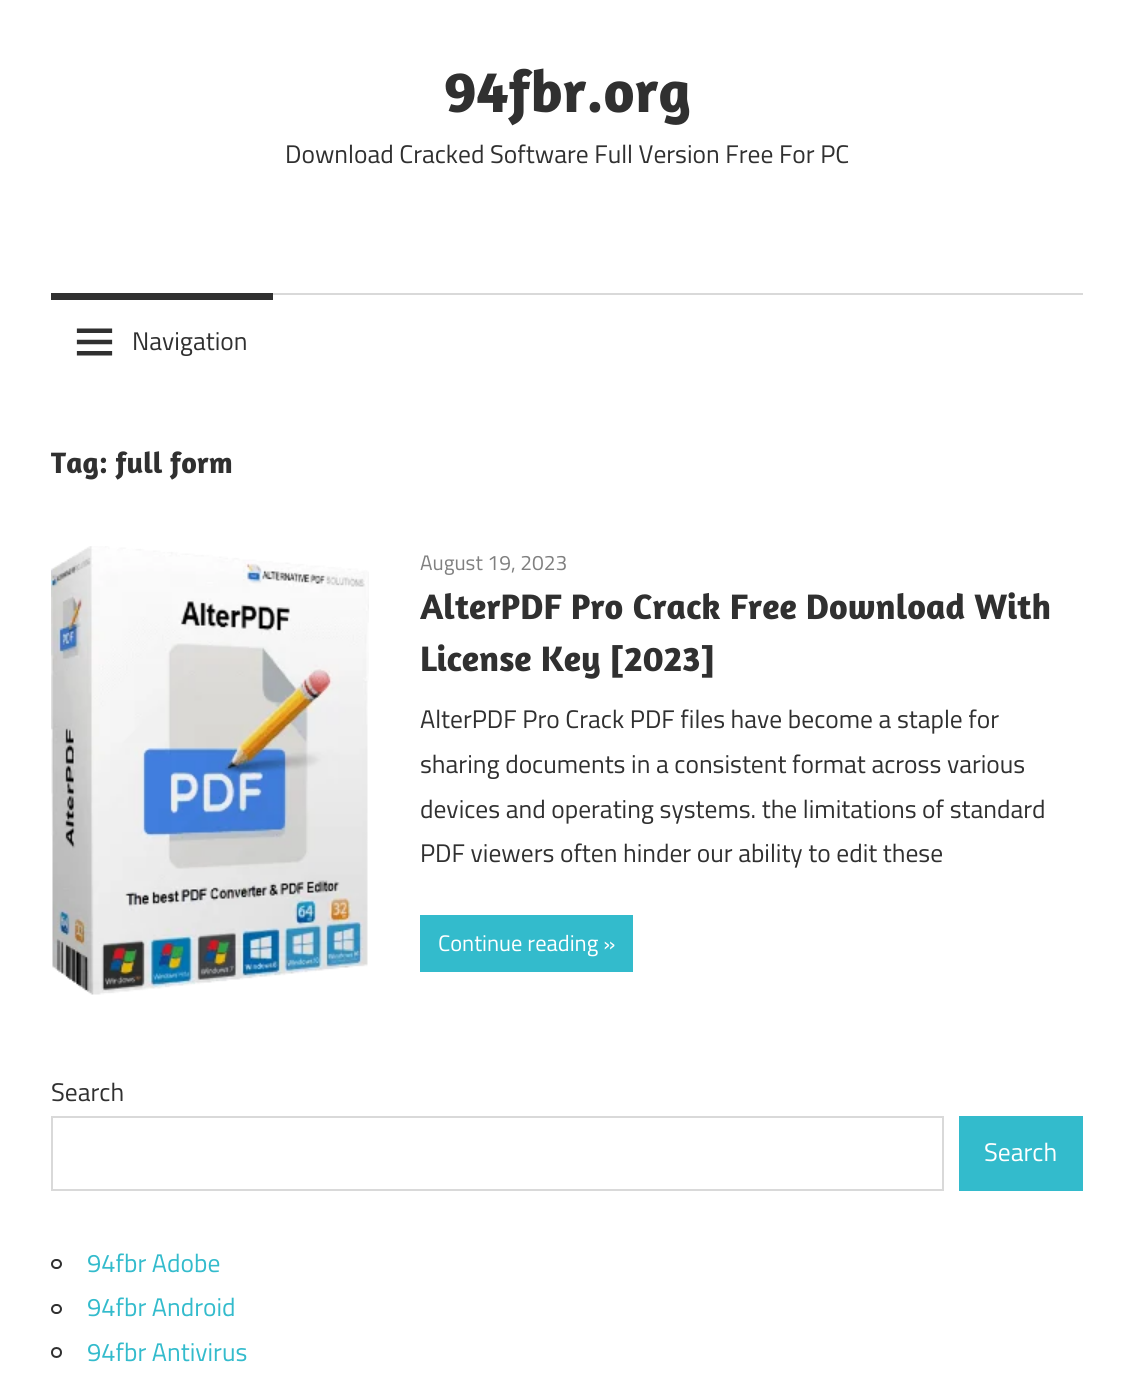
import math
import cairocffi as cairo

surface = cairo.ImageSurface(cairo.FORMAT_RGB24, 1134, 1382)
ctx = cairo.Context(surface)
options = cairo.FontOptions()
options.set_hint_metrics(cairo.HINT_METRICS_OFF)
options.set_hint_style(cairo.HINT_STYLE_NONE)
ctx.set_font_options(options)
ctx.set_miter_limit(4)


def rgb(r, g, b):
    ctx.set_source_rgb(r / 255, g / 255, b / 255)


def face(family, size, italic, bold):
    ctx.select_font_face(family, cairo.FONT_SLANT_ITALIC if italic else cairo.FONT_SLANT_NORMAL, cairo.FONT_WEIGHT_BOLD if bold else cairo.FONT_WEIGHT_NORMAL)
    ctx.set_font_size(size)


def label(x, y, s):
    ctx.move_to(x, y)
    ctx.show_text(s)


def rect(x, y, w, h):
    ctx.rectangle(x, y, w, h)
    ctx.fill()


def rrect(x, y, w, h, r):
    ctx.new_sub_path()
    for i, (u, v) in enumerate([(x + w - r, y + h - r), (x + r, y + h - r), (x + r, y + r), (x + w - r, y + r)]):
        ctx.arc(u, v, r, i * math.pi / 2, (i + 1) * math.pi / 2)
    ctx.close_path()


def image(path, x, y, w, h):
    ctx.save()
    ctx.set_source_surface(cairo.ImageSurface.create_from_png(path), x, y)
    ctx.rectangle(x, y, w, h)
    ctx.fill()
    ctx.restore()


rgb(255, 255, 255)
ctx.paint()
face('Amaranth', 60, 0, 1)
rgb(48, 48, 48)
label(444, 112, '94fbr.org')
face('Titillium Web', 25.5, 0, 0)
label(285, 163, 'Download Cracked Software Full Version Free For PC')
rgb(217, 217, 217)
rect(273, 293, 810, 2)
rgb(48, 48, 48)
rect(51, 293, 222, 7)
image('image0.png', 76, 328, 37, 28)
label(132, 350, 'Navigation')
face('Amaranth', 30, 0, 1)
label(51, 473, 'Tag: full form')
image('image1.png', 51, 546, 318, 449)
face('Titillium Web', 21, 0, 0)
rgb(128, 128, 128)
label(420, 570, 'August 19, 2023')
face('Amaranth', 36, 0, 1)
rgb(48, 48, 48)
label(420, 619, 'AlterPDF Pro Crack Free Download With')
label(420, 671, 'License Key [2023]')
face('Titillium Web', 25.5, 0, 0)
label(420, 728, 'AlterPDF Pro Crack PDF files have become a staple for')
label(420, 773, 'sharing documents in a consistent format across various')
label(420, 818, 'devices and operating systems. the limitations of standard')
label(420, 862, 'PDF viewers often hinder our ability to edit these')
rgb(51, 187, 204)
rect(420, 915, 213, 57)
face('Titillium Web', 22.5, 0, 0)
rgb(255, 255, 255)
label(438, 951, 'Continue reading »')
face('Titillium Web', 25.5, 0, 0)
rgb(48, 48, 48)
label(51, 1101, 'Search')
ctx.rectangle(52, 1117, 891, 73)
rgb(217, 217, 217)
ctx.stroke()
rgb(51, 187, 204)
rect(959, 1116, 124, 75)
rgb(255, 255, 255)
label(984, 1161, 'Search')
rrect(52, 1260, 9, 8, 4)
rgb(48, 48, 48)
ctx.stroke()
rgb(51, 187, 204)
label(87, 1272, '94fbr Adobe')
rrect(52, 1305, 9, 8, 4)
rgb(48, 48, 48)
ctx.stroke()
rgb(51, 187, 204)
label(87, 1316, '94fbr Android')
ctx.new_path()
ctx.arc(56.5, 1352.5, 4.5, 0, 2 * math.pi)
rgb(48, 48, 48)
ctx.stroke()
rgb(51, 187, 204)
label(87, 1361, '94fbr Antivirus')
surface.write_to_png('render.png')
